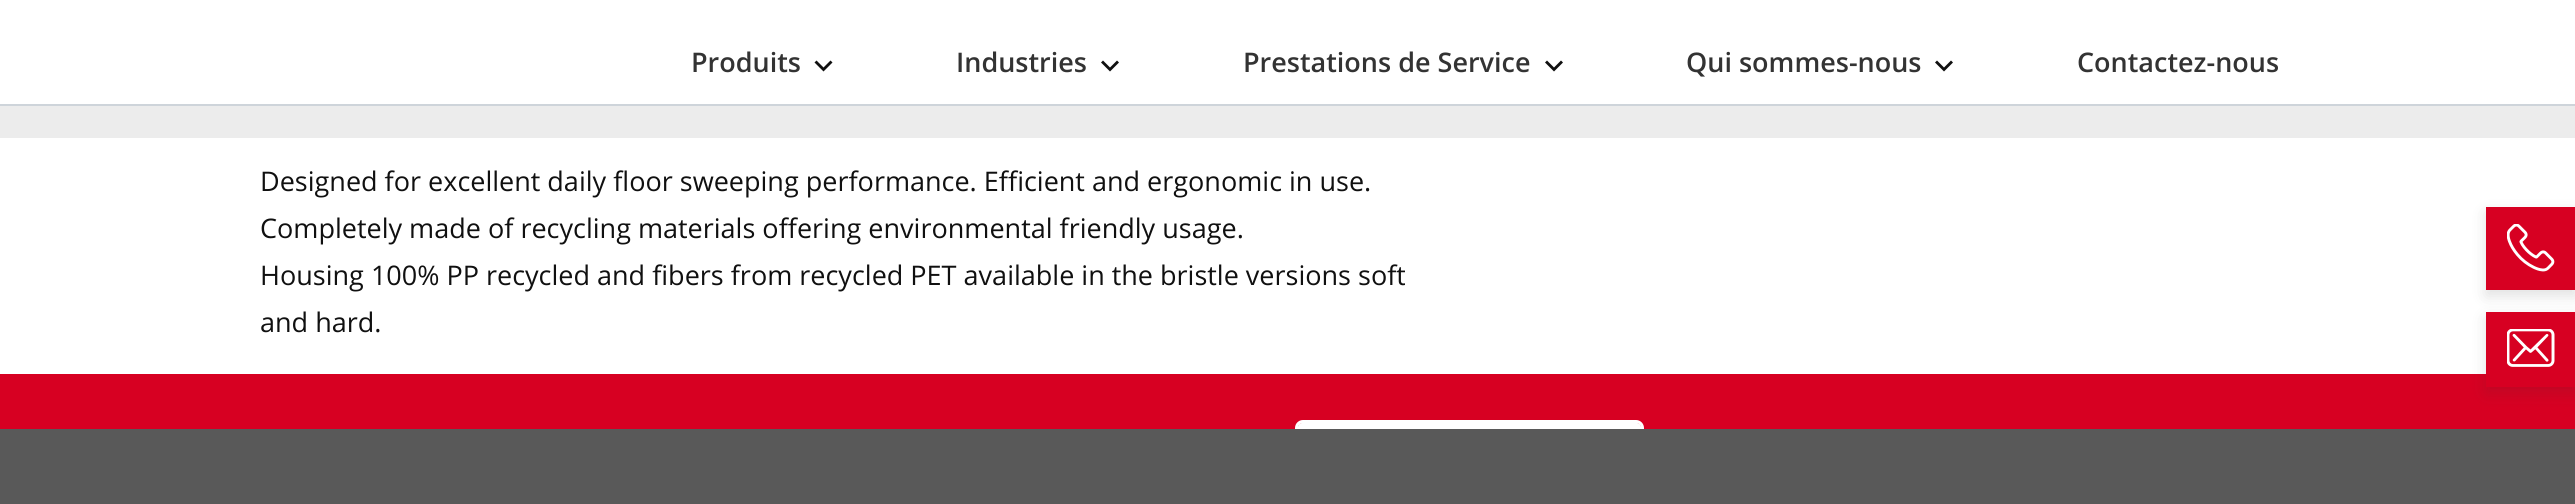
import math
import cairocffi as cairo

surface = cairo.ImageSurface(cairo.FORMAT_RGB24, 2575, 504)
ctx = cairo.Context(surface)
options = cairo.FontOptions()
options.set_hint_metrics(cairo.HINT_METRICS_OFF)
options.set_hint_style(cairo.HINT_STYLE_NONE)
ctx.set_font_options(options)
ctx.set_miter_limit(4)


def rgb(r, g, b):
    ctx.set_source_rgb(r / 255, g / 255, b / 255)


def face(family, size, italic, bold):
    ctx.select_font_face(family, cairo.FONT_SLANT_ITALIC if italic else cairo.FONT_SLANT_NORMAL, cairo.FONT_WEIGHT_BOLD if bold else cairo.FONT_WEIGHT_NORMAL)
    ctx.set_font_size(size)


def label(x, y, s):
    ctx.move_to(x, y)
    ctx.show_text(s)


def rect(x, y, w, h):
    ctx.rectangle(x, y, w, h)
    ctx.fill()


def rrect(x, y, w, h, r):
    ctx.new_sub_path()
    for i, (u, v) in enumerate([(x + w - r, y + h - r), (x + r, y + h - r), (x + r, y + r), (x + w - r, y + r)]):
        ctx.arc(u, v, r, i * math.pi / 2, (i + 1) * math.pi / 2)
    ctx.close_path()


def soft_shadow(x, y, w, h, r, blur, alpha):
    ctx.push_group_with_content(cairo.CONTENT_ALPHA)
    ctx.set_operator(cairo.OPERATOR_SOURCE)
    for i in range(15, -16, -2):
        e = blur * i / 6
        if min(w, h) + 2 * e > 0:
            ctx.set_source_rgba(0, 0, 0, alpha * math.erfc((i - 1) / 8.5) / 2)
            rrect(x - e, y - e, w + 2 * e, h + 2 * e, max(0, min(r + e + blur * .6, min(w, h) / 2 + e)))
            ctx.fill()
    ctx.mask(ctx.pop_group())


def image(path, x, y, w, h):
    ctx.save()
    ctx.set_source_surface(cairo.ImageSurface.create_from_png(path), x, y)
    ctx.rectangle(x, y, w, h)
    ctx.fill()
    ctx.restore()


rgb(255, 255, 255)
ctx.paint()
rgb(206, 212, 218)
rect(0, 104, 2575, 2)
face('Open Sans SemiBold', 27, 0, 0)
rgb(51, 51, 51)
label(691, 72, 'Produits')
rgb(16, 16, 16)
ctx.new_path()
ctx.move_to(816.5, 60.5)
ctx.line_to(823.5, 67.5)
ctx.line_to(830.5, 60.5)
ctx.line_to(832.5, 62.5)
ctx.line_to(823.5, 71.5)
ctx.line_to(814.5, 62.5)
ctx.close_path()
ctx.fill()
rgb(51, 51, 51)
label(956, 72, 'Industries')
rgb(16, 16, 16)
ctx.new_path()
ctx.move_to(1103, 60.5)
ctx.line_to(1110, 67.5)
ctx.line_to(1117, 60.5)
ctx.line_to(1119, 62.5)
ctx.line_to(1110, 71.5)
ctx.line_to(1101, 62.5)
ctx.close_path()
ctx.fill()
rgb(51, 51, 51)
label(1243, 72, 'Prestations de Service')
rgb(16, 16, 16)
ctx.new_path()
ctx.move_to(1547, 60.5)
ctx.line_to(1554, 67.5)
ctx.line_to(1561, 60.5)
ctx.line_to(1563, 62.5)
ctx.line_to(1554, 71.5)
ctx.line_to(1545, 62.5)
ctx.close_path()
ctx.fill()
rgb(51, 51, 51)
label(1686, 72, 'Qui sommes-nous')
rgb(16, 16, 16)
ctx.new_path()
ctx.move_to(1937, 60.5)
ctx.line_to(1944, 67.5)
ctx.line_to(1951, 60.5)
ctx.line_to(1953, 62.5)
ctx.line_to(1944, 71.5)
ctx.line_to(1935, 62.5)
ctx.close_path()
ctx.fill()
rgb(51, 51, 51)
label(2077, 72, 'Contactez-nous')
rgb(236, 236, 236)
rect(0, 106, 2575, 32)
face('Open Sans', 27, 0, 0)
rgb(16, 16, 16)
label(260, 191, 'Designed for excellent daily floor sweeping performance. Efficient and ergonomic in use.')
label(260, 238, 'Completely made of recycling materials offering environmental friendly usage.')
label(260, 285, 'Housing 100% PP recycled and fibers from recycled PET available in the bristle versions soft')
label(260, 332, 'and hard.')
rgb(215, 0, 34)
rect(0, 374, 2575, 55)
rgb(255, 255, 255)
rrect(1298, 423, 343, 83, 4)
ctx.fill()
rrect(1296.5, 421.5, 346, 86, 6.5)
ctx.set_line_width(3)
ctx.stroke()
rgb(89, 89, 89)
rect(0, 429, 2575, 75)
rgb(50, 50, 50)
soft_shadow(2486, 213, 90, 83, 0, 7.5, 0.15)
rgb(215, 0, 34)
rect(2486, 207, 89, 83)
image('image0.png', 2507, 224, 48, 48)
rgb(50, 50, 50)
soft_shadow(2486, 318, 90, 75, 0, 7.5, 0.15)
rgb(215, 0, 34)
rect(2486, 312, 89, 75)
image('image1.png', 2507, 329, 48, 38)
surface.write_to_png('render.png')
